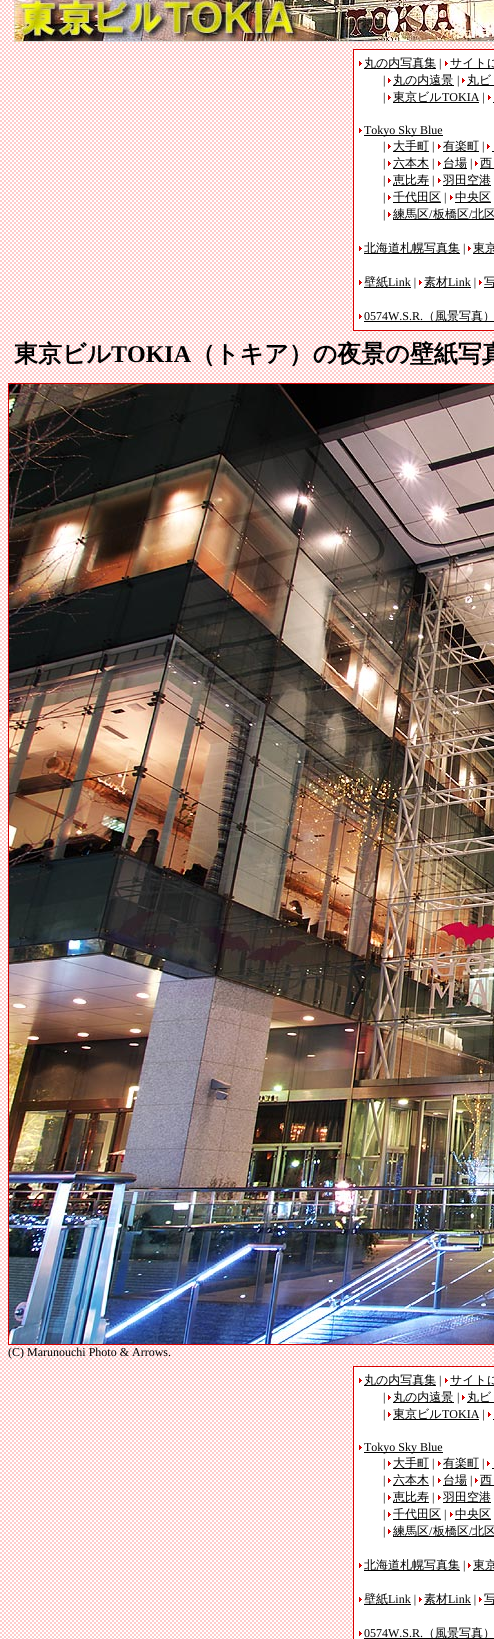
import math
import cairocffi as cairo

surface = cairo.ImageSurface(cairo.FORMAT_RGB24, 494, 1639)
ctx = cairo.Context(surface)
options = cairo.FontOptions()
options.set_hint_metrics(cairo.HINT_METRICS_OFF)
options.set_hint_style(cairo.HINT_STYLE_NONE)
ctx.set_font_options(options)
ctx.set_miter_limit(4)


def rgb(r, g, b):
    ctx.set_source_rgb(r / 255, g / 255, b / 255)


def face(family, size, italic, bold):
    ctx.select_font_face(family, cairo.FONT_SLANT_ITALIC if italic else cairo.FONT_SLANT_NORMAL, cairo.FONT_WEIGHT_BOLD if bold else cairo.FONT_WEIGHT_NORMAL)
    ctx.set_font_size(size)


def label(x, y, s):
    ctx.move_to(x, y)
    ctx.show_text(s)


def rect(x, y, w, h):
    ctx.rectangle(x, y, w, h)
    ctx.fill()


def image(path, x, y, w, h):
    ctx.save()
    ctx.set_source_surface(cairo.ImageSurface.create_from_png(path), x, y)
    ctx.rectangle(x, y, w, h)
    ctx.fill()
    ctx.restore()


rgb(255, 255, 255)
ctx.paint()
image('image0.png', 0, 0, 494, 1639)
image('image1.png', 14, 0, 480, 42)
rgb(217, 0, 0)
rect(353, 49, 141, 282)
rgb(255, 255, 255)
rect(354, 50, 140, 280)
image('image2.png', 359, 61, 3, 5)
rgb(0, 0, 0)
rect(364, 68, 72, 1)
face('WenQuanYi Zen Hei Medium', 12, 0, 0)
label(364, 67, '丸の内写真集')
face('Liberation Serif', 12, 0, 0)
label(439, 67, '|')
image('image2.png', 445, 61, 3, 5)
rect(450, 68, 44, 1)
face('WenQuanYi Zen Hei Medium', 12, 0, 0)
label(450, 67, 'サイトに')
face('Liberation Serif', 12, 0, 0)
label(383, 84, '|')
image('image2.png', 388, 78, 3, 5)
rect(393, 85, 61, 1)
face('WenQuanYi Zen Hei Medium', 12, 0, 0)
label(393, 84, '丸の内遠景')
face('Liberation Serif', 12, 0, 0)
label(457, 84, '|')
image('image2.png', 462, 78, 3, 5)
rect(467, 85, 27, 1)
face('WenQuanYi Zen Hei Medium', 12, 0, 0)
label(467, 84, '丸ビ')
face('Liberation Serif', 12, 0, 0)
label(383, 101, '|')
image('image2.png', 388, 95, 3, 5)
rect(393, 102, 86, 1)
face('WenQuanYi Zen Hei Medium', 12, 0, 0)
label(393, 101, '東京ビル')
face('Liberation Serif', 12, 0, 0)
label(442, 101, 'TOKIA |')
image('image2.png', 488, 95, 3, 5)
rect(493, 102, 1, 1)
image('image2.png', 359, 128, 3, 5)
rect(364, 135, 79, 1)
label(364, 134, 'Tokyo Sky Blue')
label(383, 150, '|')
image('image2.png', 388, 144, 3, 5)
rect(393, 151, 36, 1)
face('WenQuanYi Zen Hei Medium', 12, 0, 0)
label(393, 150, '大手町')
face('Liberation Serif', 12, 0, 0)
label(432, 150, '|')
image('image2.png', 438, 144, 3, 5)
rect(443, 151, 36, 1)
face('WenQuanYi Zen Hei Medium', 12, 0, 0)
label(443, 150, '有楽町')
face('Liberation Serif', 12, 0, 0)
label(482, 150, '|')
image('image2.png', 487, 144, 3, 5)
rect(492, 151, 2, 1)
label(383, 167, '|')
image('image2.png', 388, 161, 3, 5)
rect(393, 168, 36, 1)
face('WenQuanYi Zen Hei Medium', 12, 0, 0)
label(393, 167, '六本木')
face('Liberation Serif', 12, 0, 0)
label(432, 167, '|')
image('image2.png', 438, 161, 3, 5)
rect(443, 168, 24, 1)
face('WenQuanYi Zen Hei Medium', 12, 0, 0)
label(443, 167, '台場')
face('Liberation Serif', 12, 0, 0)
label(470, 167, '|')
image('image2.png', 475, 161, 3, 5)
rect(480, 168, 14, 1)
face('WenQuanYi Zen Hei Medium', 12, 0, 0)
label(480, 167, '西')
face('Liberation Serif', 12, 0, 0)
label(383, 184, '|')
image('image2.png', 388, 178, 3, 5)
rect(393, 185, 36, 1)
face('WenQuanYi Zen Hei Medium', 12, 0, 0)
label(393, 184, '恵比寿')
face('Liberation Serif', 12, 0, 0)
label(432, 184, '|')
image('image2.png', 438, 178, 3, 5)
rect(443, 185, 48, 1)
face('WenQuanYi Zen Hei Medium', 12, 0, 0)
label(443, 184, '羽田空港')
face('Liberation Serif', 12, 0, 0)
label(383, 201, '|')
image('image2.png', 388, 195, 3, 5)
rect(393, 202, 48, 1)
face('WenQuanYi Zen Hei Medium', 12, 0, 0)
label(393, 201, '千代田区')
face('Liberation Serif', 12, 0, 0)
label(444, 201, '|')
image('image2.png', 450, 195, 3, 5)
rect(455, 202, 36, 1)
face('WenQuanYi Zen Hei Medium', 12, 0, 0)
label(455, 201, '中央区')
face('Liberation Serif', 12, 0, 0)
label(383, 218, '|')
image('image2.png', 388, 212, 3, 5)
rect(393, 219, 101, 1)
face('WenQuanYi Zen Hei Medium', 12, 0, 0)
label(393, 218, '練馬区')
face('Liberation Serif', 12, 0, 0)
label(429, 218, '/')
face('WenQuanYi Zen Hei Medium', 12, 0, 0)
label(433, 218, '板橋区')
face('Liberation Serif', 12, 0, 0)
label(469, 218, '/')
face('WenQuanYi Zen Hei Medium', 12, 0, 0)
label(472, 218, '北区')
image('image2.png', 359, 246, 3, 5)
rect(364, 253, 96, 1)
label(364, 252, '北海道札幌写真集')
face('Liberation Serif', 12, 0, 0)
label(463, 252, '|')
image('image2.png', 468, 246, 3, 5)
rect(473, 253, 21, 1)
face('WenQuanYi Zen Hei Medium', 12, 0, 0)
label(473, 252, '東京')
image('image2.png', 359, 280, 3, 5)
rect(364, 287, 47, 1)
label(364, 286, '壁紙')
face('Liberation Serif', 12, 0, 0)
label(388, 286, 'Link |')
image('image2.png', 419, 280, 3, 5)
rect(424, 287, 47, 1)
face('WenQuanYi Zen Hei Medium', 12, 0, 0)
label(424, 286, '素材')
face('Liberation Serif', 12, 0, 0)
label(448, 286, 'Link |')
image('image2.png', 479, 280, 3, 5)
rect(484, 287, 10, 1)
face('WenQuanYi Zen Hei Medium', 12, 0, 0)
label(484, 286, '写')
image('image2.png', 359, 314, 3, 5)
face('Liberation Serif', 12, 0, 0)
label(364, 320, '0574W.S.R.')
rect(364, 321, 130, 1)
face('WenQuanYi Zen Hei Medium', 12, 0, 0)
label(423, 320, '（風景写真）')
face('WenQuanYi Zen Hei', 24, 0, 1)
label(14, 362, '東京ビル')
face('Liberation Serif', 24, 0, 1)
label(111, 362, 'TOKIA')
face('WenQuanYi Zen Hei', 24, 0, 1)
label(191, 362, '（トキア）の夜景の壁紙写真')
rgb(217, 0, 0)
rect(8, 383, 486, 962)
image('image3.png', 9, 384, 485, 960)
face('Liberation Serif', 12, 0, 0)
rgb(0, 0, 0)
label(8, 1356, '(C) Marunouchi Photo & Arrows.')
rgb(217, 0, 0)
rect(353, 1366, 141, 273)
rgb(255, 255, 255)
rect(354, 1367, 140, 272)
image('image2.png', 359, 1378, 3, 5)
rgb(0, 0, 0)
rect(364, 1385, 72, 1)
face('WenQuanYi Zen Hei Medium', 12, 0, 0)
label(364, 1384, '丸の内写真集')
face('Liberation Serif', 12, 0, 0)
label(439, 1384, '|')
image('image2.png', 445, 1378, 3, 5)
rect(450, 1385, 44, 1)
face('WenQuanYi Zen Hei Medium', 12, 0, 0)
label(450, 1384, 'サイトに')
face('Liberation Serif', 12, 0, 0)
label(383, 1401, '|')
image('image2.png', 388, 1395, 3, 5)
rect(393, 1402, 61, 1)
face('WenQuanYi Zen Hei Medium', 12, 0, 0)
label(393, 1401, '丸の内遠景')
face('Liberation Serif', 12, 0, 0)
label(457, 1401, '|')
image('image2.png', 462, 1395, 3, 5)
rect(467, 1402, 27, 1)
face('WenQuanYi Zen Hei Medium', 12, 0, 0)
label(467, 1401, '丸ビ')
face('Liberation Serif', 12, 0, 0)
label(383, 1418, '|')
image('image2.png', 388, 1412, 3, 5)
rect(393, 1419, 86, 1)
face('WenQuanYi Zen Hei Medium', 12, 0, 0)
label(393, 1418, '東京ビル')
face('Liberation Serif', 12, 0, 0)
label(442, 1418, 'TOKIA |')
image('image2.png', 488, 1412, 3, 5)
rect(493, 1419, 1, 1)
image('image2.png', 359, 1445, 3, 5)
rect(364, 1452, 79, 1)
label(364, 1451, 'Tokyo Sky Blue')
label(383, 1467, '|')
image('image2.png', 388, 1461, 3, 5)
rect(393, 1468, 36, 1)
face('WenQuanYi Zen Hei Medium', 12, 0, 0)
label(393, 1467, '大手町')
face('Liberation Serif', 12, 0, 0)
label(432, 1467, '|')
image('image2.png', 438, 1461, 3, 5)
rect(443, 1468, 36, 1)
face('WenQuanYi Zen Hei Medium', 12, 0, 0)
label(443, 1467, '有楽町')
face('Liberation Serif', 12, 0, 0)
label(482, 1467, '|')
image('image2.png', 487, 1461, 3, 5)
rect(492, 1468, 2, 1)
label(383, 1484, '|')
image('image2.png', 388, 1478, 3, 5)
rect(393, 1485, 36, 1)
face('WenQuanYi Zen Hei Medium', 12, 0, 0)
label(393, 1484, '六本木')
face('Liberation Serif', 12, 0, 0)
label(432, 1484, '|')
image('image2.png', 438, 1478, 3, 5)
rect(443, 1485, 24, 1)
face('WenQuanYi Zen Hei Medium', 12, 0, 0)
label(443, 1484, '台場')
face('Liberation Serif', 12, 0, 0)
label(470, 1484, '|')
image('image2.png', 475, 1478, 3, 5)
rect(480, 1485, 14, 1)
face('WenQuanYi Zen Hei Medium', 12, 0, 0)
label(480, 1484, '西')
face('Liberation Serif', 12, 0, 0)
label(383, 1501, '|')
image('image2.png', 388, 1495, 3, 5)
rect(393, 1502, 36, 1)
face('WenQuanYi Zen Hei Medium', 12, 0, 0)
label(393, 1501, '恵比寿')
face('Liberation Serif', 12, 0, 0)
label(432, 1501, '|')
image('image2.png', 438, 1495, 3, 5)
rect(443, 1502, 48, 1)
face('WenQuanYi Zen Hei Medium', 12, 0, 0)
label(443, 1501, '羽田空港')
face('Liberation Serif', 12, 0, 0)
label(383, 1518, '|')
image('image2.png', 388, 1512, 3, 5)
rect(393, 1519, 48, 1)
face('WenQuanYi Zen Hei Medium', 12, 0, 0)
label(393, 1518, '千代田区')
face('Liberation Serif', 12, 0, 0)
label(444, 1518, '|')
image('image2.png', 450, 1512, 3, 5)
rect(455, 1519, 36, 1)
face('WenQuanYi Zen Hei Medium', 12, 0, 0)
label(455, 1518, '中央区')
face('Liberation Serif', 12, 0, 0)
label(383, 1535, '|')
image('image2.png', 388, 1529, 3, 5)
rect(393, 1536, 101, 1)
face('WenQuanYi Zen Hei Medium', 12, 0, 0)
label(393, 1535, '練馬区')
face('Liberation Serif', 12, 0, 0)
label(429, 1535, '/')
face('WenQuanYi Zen Hei Medium', 12, 0, 0)
label(433, 1535, '板橋区')
face('Liberation Serif', 12, 0, 0)
label(469, 1535, '/')
face('WenQuanYi Zen Hei Medium', 12, 0, 0)
label(472, 1535, '北区')
image('image2.png', 359, 1563, 3, 5)
rect(364, 1570, 96, 1)
label(364, 1569, '北海道札幌写真集')
face('Liberation Serif', 12, 0, 0)
label(463, 1569, '|')
image('image2.png', 468, 1563, 3, 5)
rect(473, 1570, 21, 1)
face('WenQuanYi Zen Hei Medium', 12, 0, 0)
label(473, 1569, '東京')
image('image2.png', 359, 1597, 3, 5)
rect(364, 1604, 47, 1)
label(364, 1603, '壁紙')
face('Liberation Serif', 12, 0, 0)
label(388, 1603, 'Link |')
image('image2.png', 419, 1597, 3, 5)
rect(424, 1604, 47, 1)
face('WenQuanYi Zen Hei Medium', 12, 0, 0)
label(424, 1603, '素材')
face('Liberation Serif', 12, 0, 0)
label(448, 1603, 'Link |')
image('image2.png', 479, 1597, 3, 5)
rect(484, 1604, 10, 1)
face('WenQuanYi Zen Hei Medium', 12, 0, 0)
label(484, 1603, '写')
image('image2.png', 359, 1631, 3, 5)
face('Liberation Serif', 12, 0, 0)
label(364, 1637, '0574W.S.R.')
rect(364, 1638, 130, 1)
face('WenQuanYi Zen Hei Medium', 12, 0, 0)
label(423, 1637, '（風景写真）')
surface.write_to_png('render.png')
